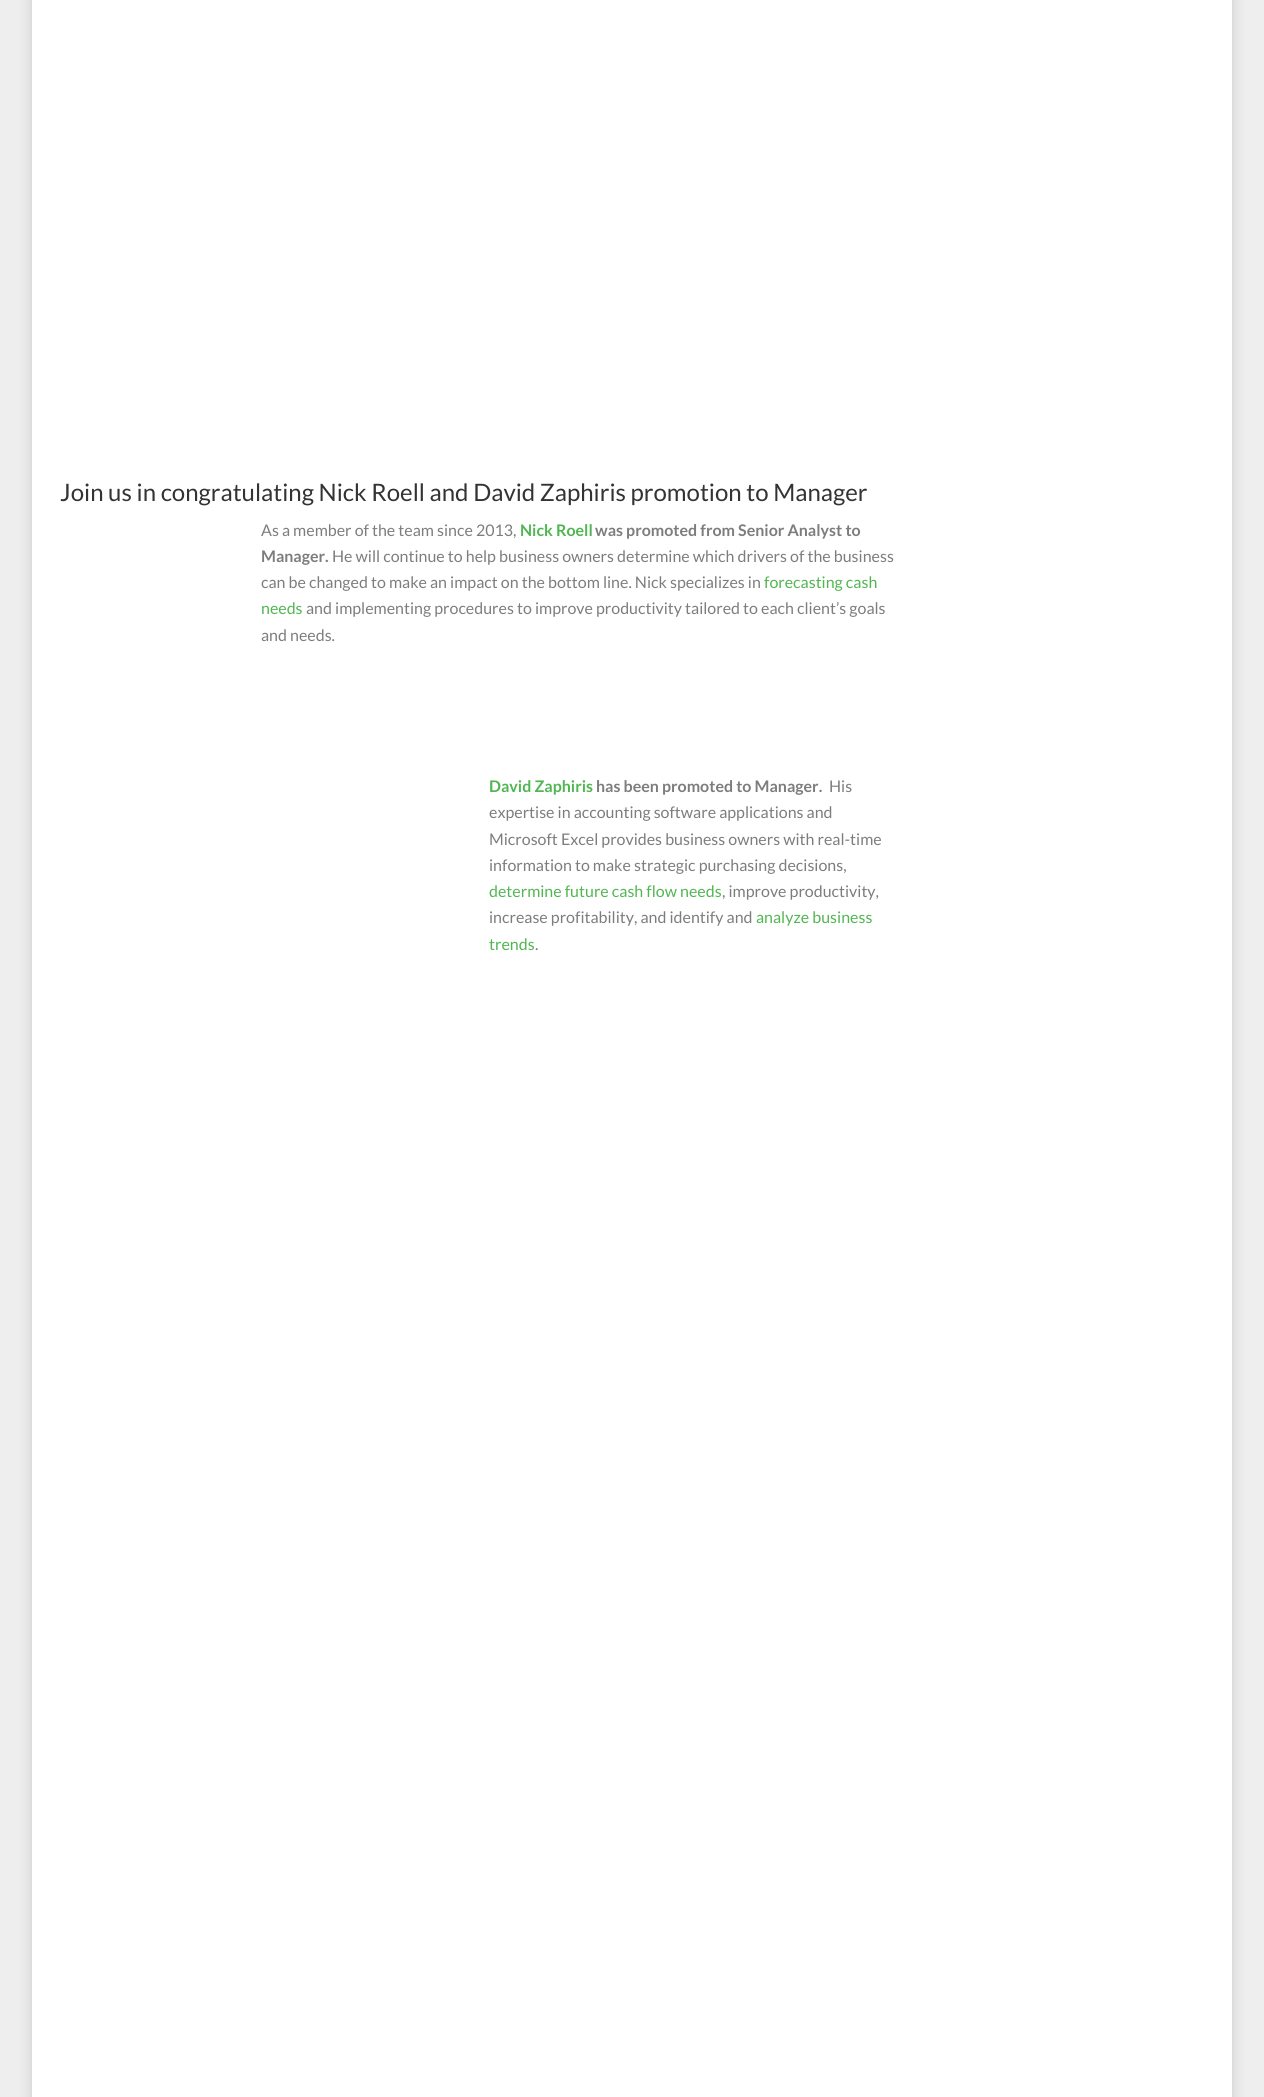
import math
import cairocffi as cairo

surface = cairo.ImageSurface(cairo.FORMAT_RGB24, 1264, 2097)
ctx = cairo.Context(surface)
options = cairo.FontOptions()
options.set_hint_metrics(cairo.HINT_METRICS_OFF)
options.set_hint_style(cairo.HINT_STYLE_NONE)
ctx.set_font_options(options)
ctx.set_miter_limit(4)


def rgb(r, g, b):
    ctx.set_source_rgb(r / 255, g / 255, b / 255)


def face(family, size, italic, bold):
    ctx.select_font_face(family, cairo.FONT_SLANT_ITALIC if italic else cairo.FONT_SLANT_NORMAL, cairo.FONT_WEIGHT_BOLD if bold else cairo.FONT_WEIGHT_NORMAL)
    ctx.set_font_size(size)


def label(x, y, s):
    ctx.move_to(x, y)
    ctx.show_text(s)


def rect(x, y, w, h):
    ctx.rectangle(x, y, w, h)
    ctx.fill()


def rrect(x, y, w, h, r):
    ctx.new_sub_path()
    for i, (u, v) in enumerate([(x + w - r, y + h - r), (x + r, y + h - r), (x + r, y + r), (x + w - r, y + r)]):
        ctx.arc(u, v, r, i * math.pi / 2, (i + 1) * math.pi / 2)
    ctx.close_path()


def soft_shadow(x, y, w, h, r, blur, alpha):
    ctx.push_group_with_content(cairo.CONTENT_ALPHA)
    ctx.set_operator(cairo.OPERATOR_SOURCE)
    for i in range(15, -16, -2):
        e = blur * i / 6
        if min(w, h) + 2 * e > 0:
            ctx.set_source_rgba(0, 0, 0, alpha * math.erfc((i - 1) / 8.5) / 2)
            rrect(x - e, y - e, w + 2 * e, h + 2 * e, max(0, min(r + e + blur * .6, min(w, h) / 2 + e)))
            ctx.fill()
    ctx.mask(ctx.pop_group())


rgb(238, 238, 238)
ctx.paint()
rgb(0, 0, 0)
soft_shadow(32, -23, 1200, 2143, 0, 7.5, 0.15)
rgb(255, 255, 255)
rect(32, 0, 1200, 2097)
face('Lato', 24, 0, 0)
rgb(51, 51, 51)
label(60, 501, 'Join us in congratulating Nick Roell and David Zaphiris promotion to Manager')
face('Lato', 16, 0, 0)
rgb(125, 125, 125)
label(261, 536, 'As a member of the team since 2013,')
face('Lato', 16, 0, 1)
rgb(81, 182, 82)
label(520, 536, 'Nick Roell')
rgb(125, 125, 125)
label(595, 536, 'was promoted from Senior Analyst to')
label(261, 562, 'Manager.')
face('Lato', 16, 0, 0)
label(332, 562, 'He will continue to help business owners determine which drivers of the business')
label(261, 588, 'can be changed to make an impact on the bottom line. Nick specializes in')
rgb(81, 182, 82)
label(764, 588, 'forecasting cash')
label(261, 614, 'needs')
rgb(125, 125, 125)
label(306, 614, 'and implementing procedures to improve productivity tailored to each client’s goals')
label(261, 641, 'and needs.')
face('Lato', 16, 0, 1)
rgb(81, 182, 82)
label(489, 792, 'David Zaphiris')
rgb(125, 125, 125)
label(596, 792, 'has been promoted to Manager.')
face('Lato', 16, 0, 0)
label(829, 792, 'His')
label(489, 818, 'expertise in accounting software applications and')
label(489, 845, 'Microsoft Excel provides business owners with real-time')
label(489, 871, 'information to make strategic purchasing decisions,')
rgb(81, 182, 82)
label(489, 897, 'determine future cash flow needs')
rgb(125, 125, 125)
label(722, 897, ', improve productivity,')
label(489, 923, 'increase profitability, and identify and')
rgb(81, 182, 82)
label(756, 923, 'analyze business')
label(489, 950, 'trends')
rgb(125, 125, 125)
label(535, 950, '.')
surface.write_to_png('render.png')
